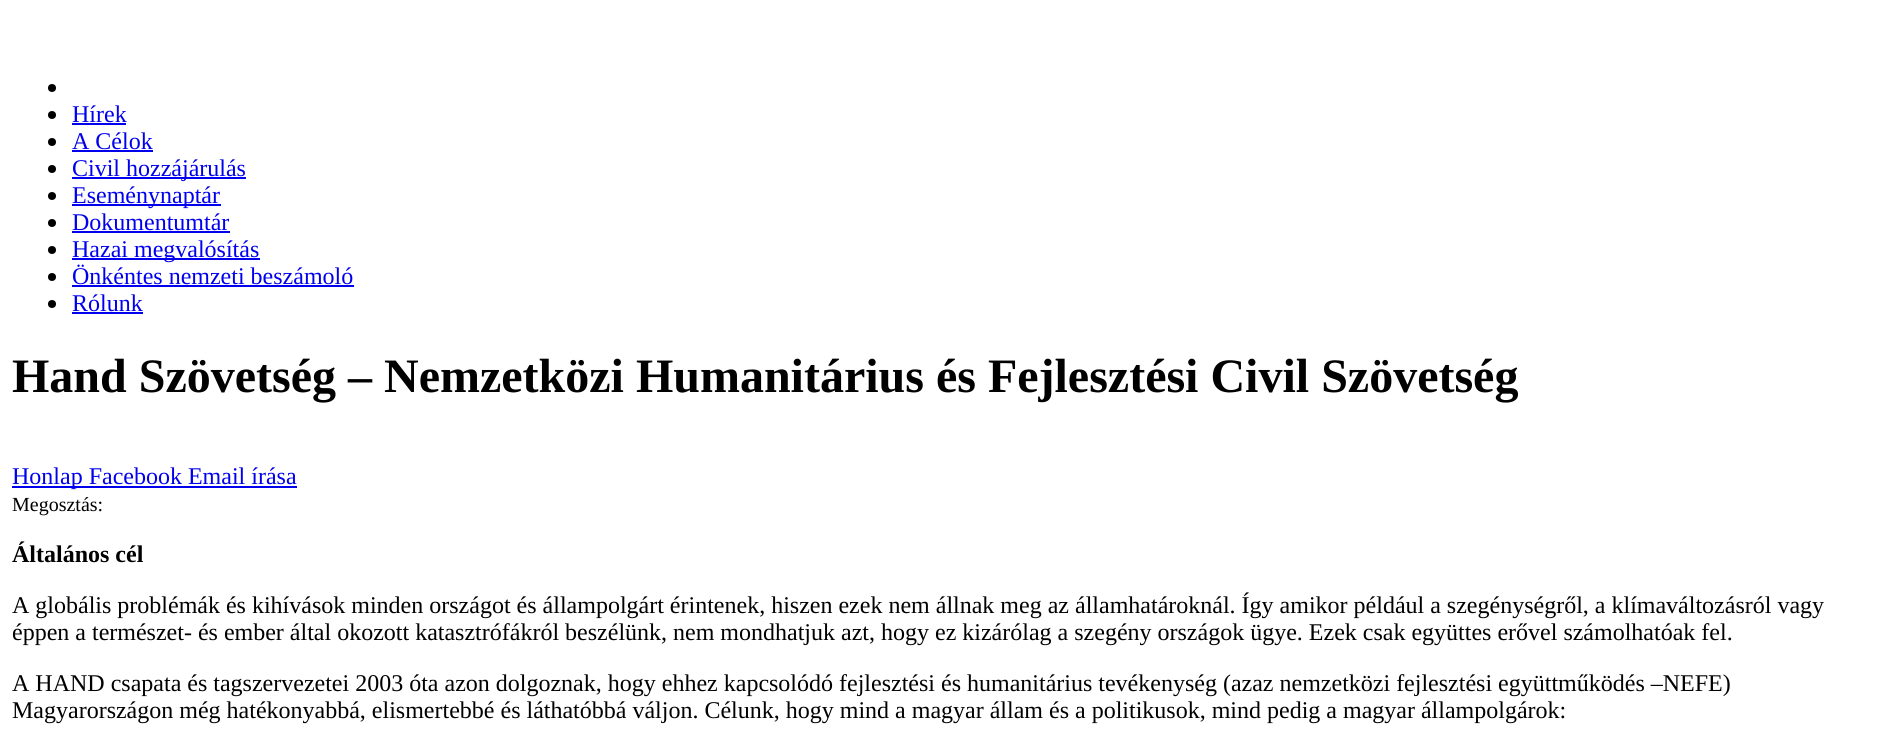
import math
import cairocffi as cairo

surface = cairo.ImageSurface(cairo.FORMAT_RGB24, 1883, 736)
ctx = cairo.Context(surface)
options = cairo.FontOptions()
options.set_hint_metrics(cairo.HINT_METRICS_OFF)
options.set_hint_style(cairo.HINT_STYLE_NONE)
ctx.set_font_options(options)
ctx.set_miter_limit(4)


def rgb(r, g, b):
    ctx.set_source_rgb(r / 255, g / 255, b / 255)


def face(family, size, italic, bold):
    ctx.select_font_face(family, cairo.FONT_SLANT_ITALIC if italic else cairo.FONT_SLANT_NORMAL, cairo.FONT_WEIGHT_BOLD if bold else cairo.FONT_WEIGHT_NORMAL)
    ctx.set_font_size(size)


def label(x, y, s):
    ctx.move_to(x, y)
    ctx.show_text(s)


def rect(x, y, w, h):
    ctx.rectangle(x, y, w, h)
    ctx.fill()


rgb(255, 255, 255)
ctx.paint()
rgb(0, 0, 0)
ctx.arc(52, 88, 4, 0, 2 * math.pi)
ctx.fill()
ctx.arc(52, 115, 4, 0, 2 * math.pi)
ctx.fill()
face('Liberation Serif', 24, 0, 0)
rgb(0, 0, 238)
label(72, 122, 'Hírek')
rect(72, 123, 54, 2)
rgb(0, 0, 0)
ctx.new_path()
ctx.arc(52, 142, 4, 0, 2 * math.pi)
ctx.fill()
rgb(0, 0, 238)
label(72, 149, 'A Célok')
rect(72, 150, 81, 2)
rgb(0, 0, 0)
ctx.new_path()
ctx.arc(52, 169, 4, 0, 2 * math.pi)
ctx.fill()
rgb(0, 0, 238)
rect(72, 177, 174, 2)
label(72, 176, 'Civil hozzájárulás')
rgb(0, 0, 0)
ctx.new_path()
ctx.arc(52, 196, 4, 0, 2 * math.pi)
ctx.fill()
rgb(0, 0, 238)
rect(72, 204, 149, 2)
label(72, 203, 'Eseménynaptár')
rgb(0, 0, 0)
ctx.new_path()
ctx.arc(52, 223, 4, 0, 2 * math.pi)
ctx.fill()
rgb(0, 0, 238)
label(72, 230, 'Dokumentumtár')
rect(72, 231, 158, 2)
rgb(0, 0, 0)
ctx.new_path()
ctx.arc(52, 250, 4, 0, 2 * math.pi)
ctx.fill()
rgb(0, 0, 238)
rect(72, 258, 188, 2)
label(72, 257, 'Hazai megvalósítás')
rgb(0, 0, 0)
ctx.new_path()
ctx.arc(52, 277, 4, 0, 2 * math.pi)
ctx.fill()
rgb(0, 0, 238)
label(72, 284, 'Önkéntes nemzeti beszámoló')
rect(72, 285, 282, 2)
rgb(0, 0, 0)
ctx.new_path()
ctx.arc(52, 304, 4, 0, 2 * math.pi)
ctx.fill()
rgb(0, 0, 238)
label(72, 311, 'Rólunk')
rect(72, 312, 71, 2)
face('Liberation Serif', 48, 0, 1)
rgb(0, 0, 0)
label(12, 392, 'Hand Szövetség – Nemzetközi Humanitárius és Fejlesztési Civil Szövetség')
rgb(0, 0, 238)
rect(12, 486, 285, 2)
face('Liberation Serif', 24, 0, 0)
label(12, 484, 'Honlap Facebook Email írása')
face('Liberation Serif', 20, 0, 0)
rgb(0, 0, 0)
label(12, 511, 'Megosztás:')
face('Liberation Serif', 24, 0, 1)
label(12, 562, 'Általános cél')
face('Liberation Serif', 24, 0, 0)
label(12, 613, 'A globális problémák és kihívások minden országot és állampolgárt érintenek, hiszen ezek nem állnak meg az államhatároknál. Így amikor például a szegénységről, a klímaváltozásról vagy')
label(12, 640, 'éppen a természet- és ember által okozott katasztrófákról beszélünk, nem mondhatjuk azt, hogy ez kizárólag a szegény országok ügye. Ezek csak együttes erővel számolhatóak fel.')
label(12, 691, 'A HAND csapata és tagszervezetei 2003 óta azon dolgoznak, hogy ehhez kapcsolódó fejlesztési és humanitárius tevékenység (azaz nemzetközi fejlesztési együttműködés –NEFE)')
label(12, 718, 'Magyarországon még hatékonyabbá, elismertebbé és láthatóbbá váljon. Célunk, hogy mind a magyar állam és a politikusok, mind pedig a magyar állampolgárok:')
surface.write_to_png('render.png')
